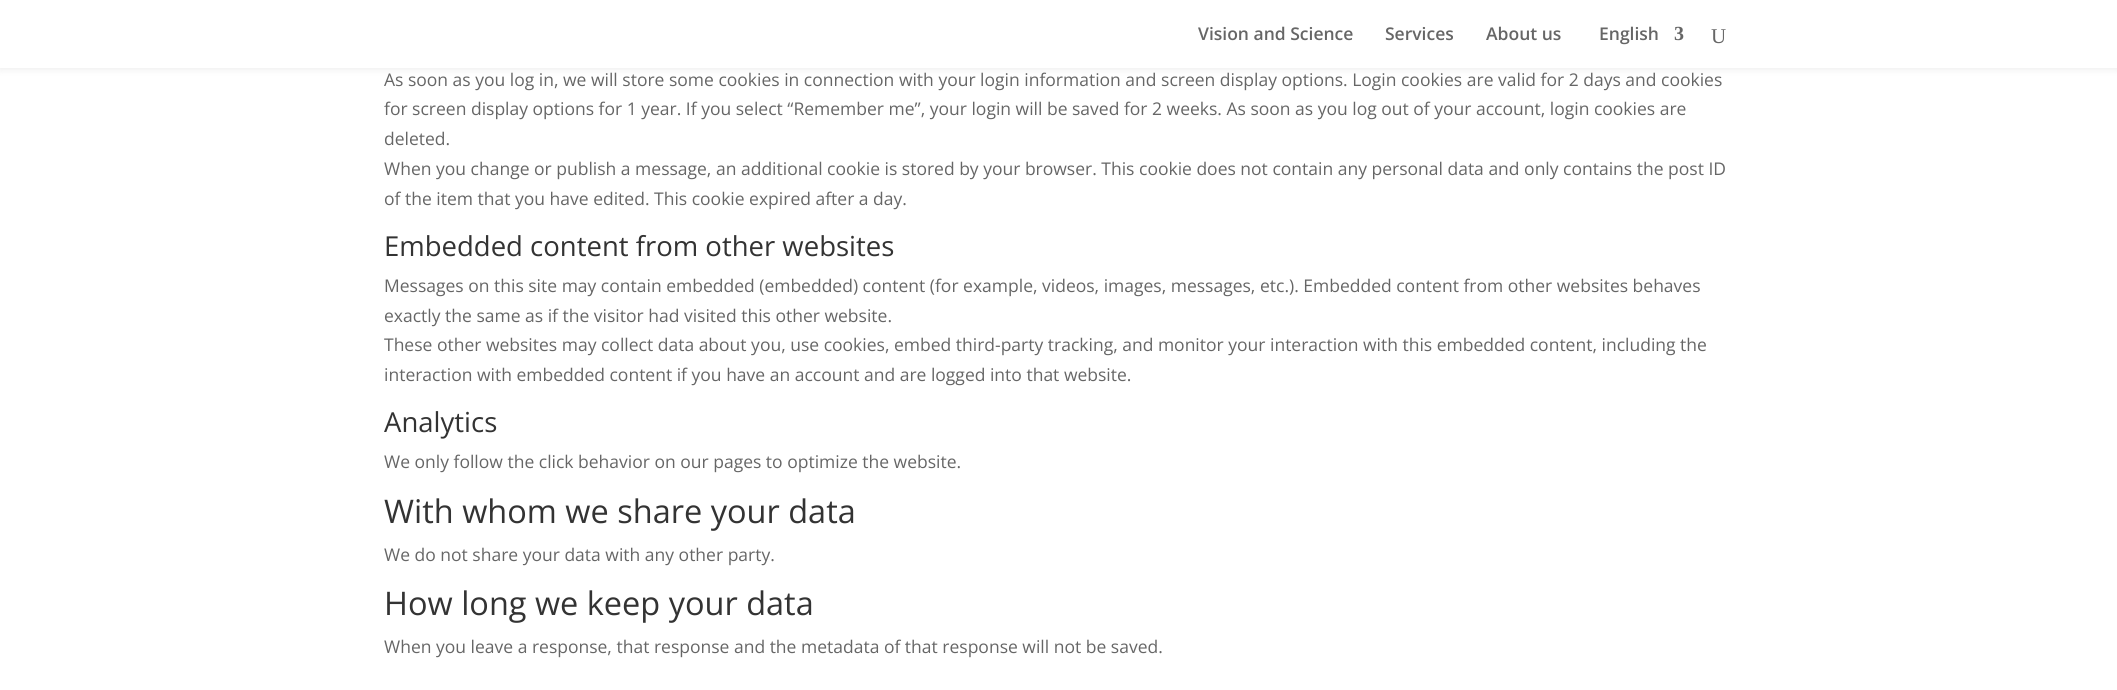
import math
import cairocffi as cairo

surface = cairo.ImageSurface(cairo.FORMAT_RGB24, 2117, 690)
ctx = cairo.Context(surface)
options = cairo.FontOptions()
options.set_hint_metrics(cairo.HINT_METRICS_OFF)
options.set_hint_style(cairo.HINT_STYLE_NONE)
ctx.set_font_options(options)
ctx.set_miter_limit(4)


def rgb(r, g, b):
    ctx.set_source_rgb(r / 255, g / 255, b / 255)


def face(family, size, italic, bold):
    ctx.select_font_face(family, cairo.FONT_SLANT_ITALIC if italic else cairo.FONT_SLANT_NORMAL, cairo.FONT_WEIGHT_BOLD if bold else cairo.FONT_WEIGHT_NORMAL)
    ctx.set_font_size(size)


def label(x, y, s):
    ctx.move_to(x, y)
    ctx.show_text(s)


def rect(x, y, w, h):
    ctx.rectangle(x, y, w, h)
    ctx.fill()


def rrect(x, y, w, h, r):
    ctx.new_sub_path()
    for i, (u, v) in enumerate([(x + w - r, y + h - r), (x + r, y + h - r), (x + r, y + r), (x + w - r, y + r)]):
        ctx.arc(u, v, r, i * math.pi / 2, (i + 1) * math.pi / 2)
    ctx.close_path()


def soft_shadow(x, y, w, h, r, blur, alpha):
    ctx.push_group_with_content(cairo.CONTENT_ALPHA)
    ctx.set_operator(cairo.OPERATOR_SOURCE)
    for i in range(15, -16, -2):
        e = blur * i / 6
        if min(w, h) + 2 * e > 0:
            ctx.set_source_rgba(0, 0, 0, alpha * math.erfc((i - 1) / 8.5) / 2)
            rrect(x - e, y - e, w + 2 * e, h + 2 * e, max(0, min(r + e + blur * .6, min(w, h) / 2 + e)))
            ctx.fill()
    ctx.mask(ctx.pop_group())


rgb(255, 255, 255)
ctx.paint()
rgb(0, 0, 0)
soft_shadow(0, 0, 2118, 68, 0, 4.5, 0.1)
rgb(255, 255, 255)
rect(0, 0, 2117, 68)
face('Open Sans SemiBold', 17.5, 0, 0)
rgb(102, 102, 102)
label(1198, 40, 'Vision and Science')
label(1385, 40, 'Services')
label(1486, 40, 'About us')
label(1599, 40, 'English')
face('Liberation Serif', 20, 0, 1)
label(1674, 40, '3')
face('Liberation Serif', 21, 0, 0)
label(1711, 43, 'U')
face('Open Sans', 17.5, 0, 0)
label(384, 86, 'As soon as you log in, we will store some cookies in connection with your login information and screen display options. Login cookies are valid for 2 days and cookies')
label(384, 115, 'for screen display options for 1 year. If you select “Remember me”, your login will be saved for 2 weeks. As soon as you log out of your account, login cookies are')
label(384, 145, 'deleted.')
label(384, 175, 'When you change or publish a message, an additional cookie is stored by your browser. This cookie does not contain any personal data and only contains the post ID')
label(384, 205, 'of the item that you have edited. This cookie expired after a day.')
face('Open Sans', 27.5, 0, 0)
rgb(51, 51, 51)
label(384, 256, 'Embedded content from other websites')
face('Open Sans', 17.5, 0, 0)
rgb(102, 102, 102)
label(384, 292, 'Messages on this site may contain embedded (embedded) content (for example, videos, images, messages, etc.). Embedded content from other websites behaves')
label(384, 322, 'exactly the same as if the visitor had visited this other website.')
label(384, 351, 'These other websites may collect data about you, use cookies, embed third-party tracking, and monitor your interaction with this embedded content, including the')
label(384, 381, 'interaction with embedded content if you have an account and are logged into that website.')
face('Open Sans', 27.5, 0, 0)
rgb(51, 51, 51)
label(384, 432, 'Analytics')
face('Open Sans', 17.5, 0, 0)
rgb(102, 102, 102)
label(384, 468, 'We only follow the click behavior on our pages to optimize the website.')
face('Open Sans', 32.5, 0, 0)
rgb(51, 51, 51)
label(384, 523, 'With whom we share your data')
face('Open Sans', 17.5, 0, 0)
rgb(102, 102, 102)
label(384, 561, 'We do not share your data with any other party.')
face('Open Sans', 32.5, 0, 0)
rgb(51, 51, 51)
label(384, 615, 'How long we keep your data')
face('Open Sans', 17.5, 0, 0)
rgb(102, 102, 102)
label(384, 653, 'When you leave a response, that response and the metadata of that response will not be saved.')
surface.write_to_png('render.png')
